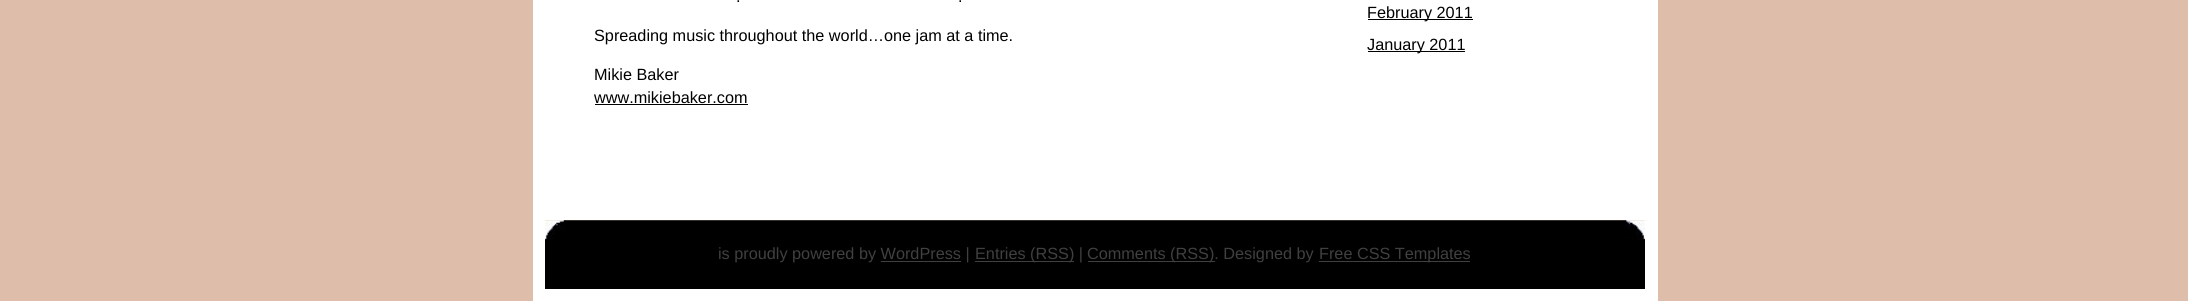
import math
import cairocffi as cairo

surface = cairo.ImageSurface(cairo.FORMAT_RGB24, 2188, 301)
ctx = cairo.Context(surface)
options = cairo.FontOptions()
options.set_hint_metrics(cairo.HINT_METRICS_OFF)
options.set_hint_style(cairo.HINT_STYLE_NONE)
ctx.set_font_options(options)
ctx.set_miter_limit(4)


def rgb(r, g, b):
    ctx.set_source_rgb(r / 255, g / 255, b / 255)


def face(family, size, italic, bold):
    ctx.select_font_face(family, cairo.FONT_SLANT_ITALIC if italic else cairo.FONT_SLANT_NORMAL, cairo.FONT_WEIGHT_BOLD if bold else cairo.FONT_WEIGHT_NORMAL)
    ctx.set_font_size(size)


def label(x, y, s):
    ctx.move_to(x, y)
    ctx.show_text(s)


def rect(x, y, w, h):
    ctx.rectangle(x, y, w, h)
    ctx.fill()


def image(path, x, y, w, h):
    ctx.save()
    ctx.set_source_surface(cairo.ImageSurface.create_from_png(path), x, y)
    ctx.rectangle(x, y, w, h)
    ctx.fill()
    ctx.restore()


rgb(222, 190, 170)
ctx.paint()
rgb(255, 255, 255)
rect(533, 0, 1125, 220)
face('Liberation Sans', 16.25, 0, 0)
rgb(0, 0, 0)
label(736, 2, '.')
label(958, 2, '.')
label(594, 41, 'Spreading music throughout the world…one jam at a time.')
label(594, 80, 'Mikie Baker')
label(594, 103, 'www.mikiebaker.com')
rect(595, 104, 153, 1)
rect(1368, 19, 105, 1)
label(1367, 18, 'February 2011')
rect(1368, 51, 97, 1)
label(1367, 50, 'January 2011')
image('image0.png', 545, 220, 1100, 69)
rgb(255, 255, 255)
rect(1645, 220, 13, 69)
rect(545, 289, 1113, 12)
rect(533, 220, 12, 81)
rgb(64, 64, 64)
label(718, 259, 'is proudly powered by WordPress |')
rect(975, 261, 99, 1)
label(975, 259, 'Entries (RSS) |')
rect(1088, 261, 127, 1)
label(1087, 259, 'Comments (RSS). Designed by')
rect(1319, 261, 151, 1)
label(1319, 259, 'Free CSS Templates')
rect(881, 261, 80, 1)
surface.write_to_png('render.png')
